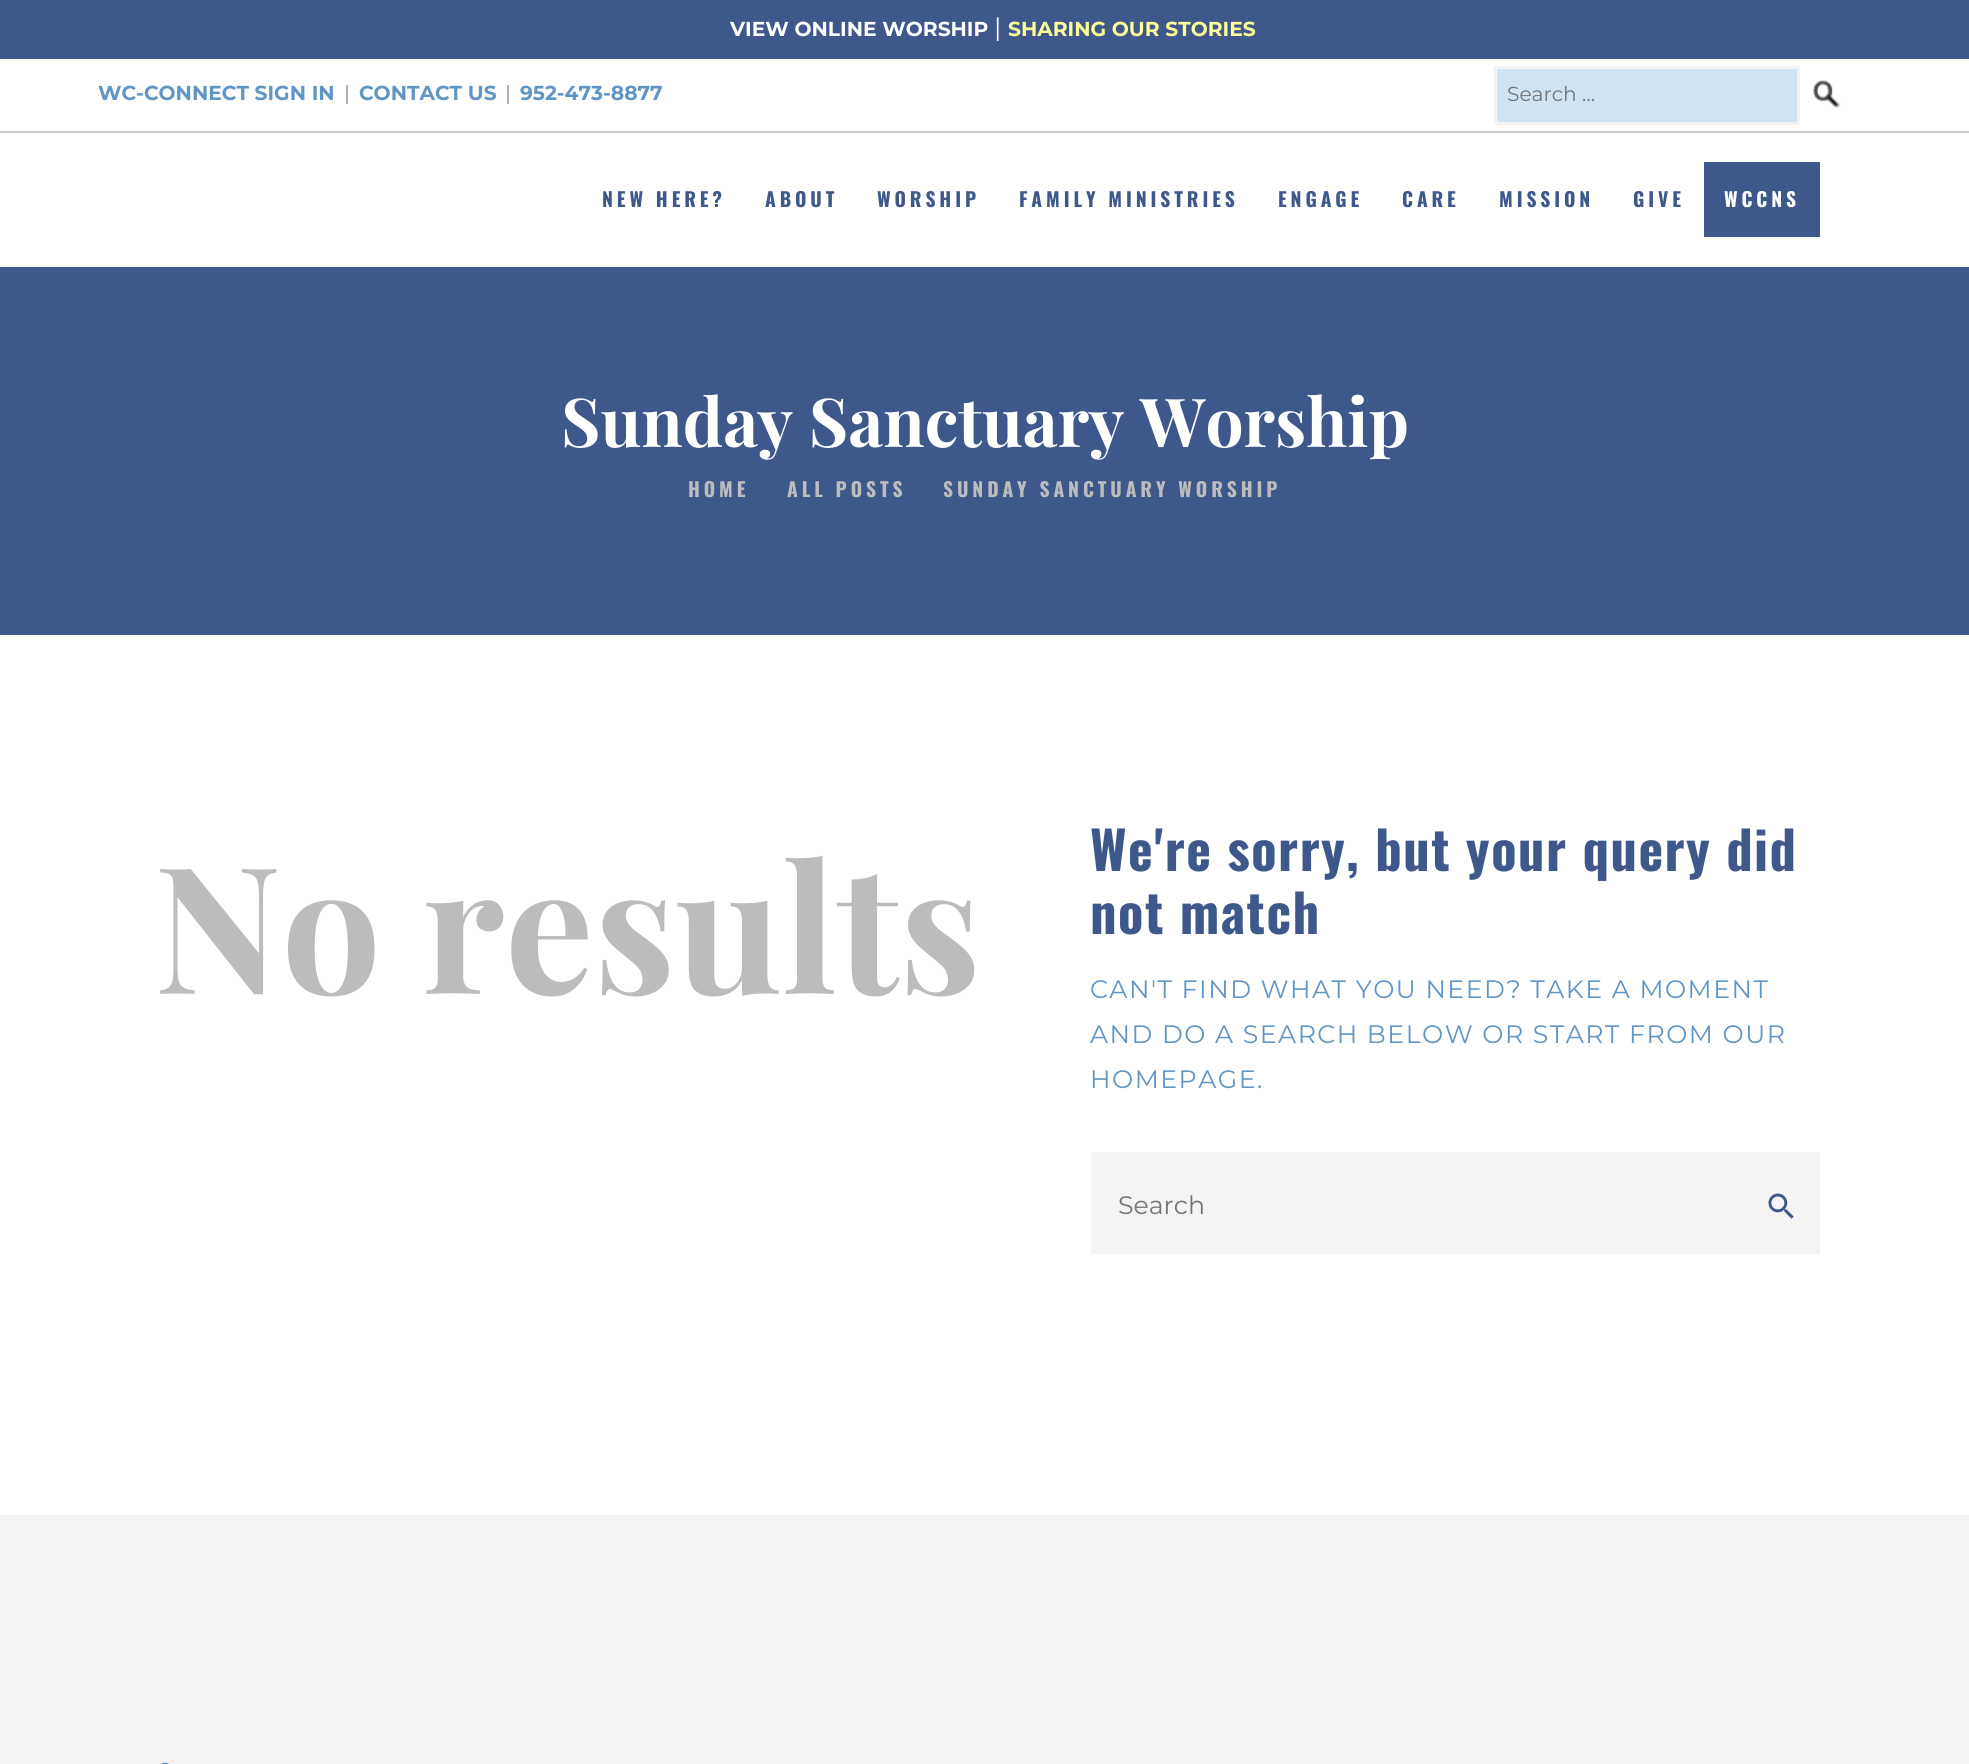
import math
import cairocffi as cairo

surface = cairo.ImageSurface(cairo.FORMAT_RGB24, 1969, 1764)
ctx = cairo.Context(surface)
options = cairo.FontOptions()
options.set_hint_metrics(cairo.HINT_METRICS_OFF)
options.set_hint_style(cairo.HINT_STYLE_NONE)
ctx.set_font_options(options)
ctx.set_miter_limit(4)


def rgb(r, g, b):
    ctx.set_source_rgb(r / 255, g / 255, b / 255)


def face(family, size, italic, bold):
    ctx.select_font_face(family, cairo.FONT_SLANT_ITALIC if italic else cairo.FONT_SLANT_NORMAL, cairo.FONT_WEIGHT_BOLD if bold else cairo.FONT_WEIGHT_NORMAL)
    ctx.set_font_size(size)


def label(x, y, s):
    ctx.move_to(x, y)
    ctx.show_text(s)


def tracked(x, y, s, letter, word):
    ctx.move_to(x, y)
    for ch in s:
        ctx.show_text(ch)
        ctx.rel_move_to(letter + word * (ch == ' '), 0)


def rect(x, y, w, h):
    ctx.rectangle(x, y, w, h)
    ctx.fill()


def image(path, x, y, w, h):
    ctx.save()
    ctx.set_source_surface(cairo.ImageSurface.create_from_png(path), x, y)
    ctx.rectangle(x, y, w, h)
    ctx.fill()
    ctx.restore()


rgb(255, 255, 255)
ctx.paint()
rgb(62, 88, 139)
rect(0, 0, 1969, 59)
face('Montserrat', 20.2, 0, 1)
rgb(255, 255, 255)
label(730, 36, 'VIEW ONLINE WORSHIP')
face('Montserrat', 25.2, 0, 0)
label(994, 36, '|')
face('Montserrat', 20.2, 0, 1)
rgb(255, 255, 153)
label(1008, 36, 'SHARING OUR STORIES')
rgb(204, 204, 204)
rect(0, 131, 1969, 2)
rgb(97, 149, 197)
label(98, 100, 'WC-CONNECT SIGN IN')
face('Montserrat', 20.2, 0, 0)
rgb(140, 140, 140)
label(344, 100, '|')
face('Montserrat', 20.2, 0, 1)
rgb(97, 149, 197)
label(359, 100, 'CONTACT US')
face('Montserrat', 20.2, 0, 0)
rgb(140, 140, 140)
label(505, 100, '|')
face('Montserrat', 20.2, 0, 1)
rgb(97, 149, 197)
label(520, 100, '952-473-8877')
rgb(207, 227, 243)
ctx.rectangle(1495.5, 67.5, 303, 56)
ctx.fill_preserve()
rgb(246, 244, 242)
ctx.set_line_width(3)
ctx.stroke()
face('Montserrat', 20.2, 0, 0)
rgb(117, 117, 117)
label(1507, 101, 'Search …')
image('image0.png', 1813, 80, 28, 28)
face('Oswald', 19.5, 0, 1)
rgb(62, 88, 139)
tracked(602, 207, 'NEW HERE?', 3.9, 0)
tracked(765, 207, 'ABOUT', 3.9, 0)
tracked(877, 207, 'WORSHIP', 3.9, 0)
tracked(1019, 207, 'FAMILY MINISTRIES', 3.9, 0)
tracked(1278, 207, 'ENGAGE', 3.9, 0)
tracked(1402, 207, 'CARE', 3.9, 0)
tracked(1499, 207, 'MISSION', 3.9, 0)
tracked(1633, 207, 'GIVE', 3.9, 0)
rect(1704, 162, 116, 75)
rgb(255, 255, 255)
tracked(1724, 207, 'WCCNS', 3.9, 0)
rgb(62, 88, 139)
rect(0, 267, 1969, 368)
face('Playfair Display', 67.5, 0, 1)
rgb(255, 255, 255)
label(561, 447, 'Sunday Sanctuary Worship')
face('Oswald', 19.5, 0, 1)
rgb(188, 188, 188)
tracked(688, 497, 'HOME', 3.9, 0)
tracked(787, 497, 'ALL POSTS', 3.9, 0)
tracked(943, 497, 'SUNDAY SANCTUARY WORSHIP', 3.9, 0)
face('Playfair Display', 176.5, 0, 1)
label(154, 994, 'No results')
face('Oswald', 52.5, 0, 1)
rgb(62, 88, 139)
tracked(1090, 871, 'We\'re sorry, but your query did', 1.5, 0)
tracked(1090, 934, 'not match', 1.5, 0)
face('Montserrat', 25.2, 0, 0)
rgb(97, 149, 197)
tracked(1090, 998, 'CAN\'T FIND WHAT YOU NEED? TAKE A MOMENT', 1.5, 0)
tracked(1090, 1043, 'AND DO A SEARCH BELOW OR START FROM OUR', 1.5, 0)
tracked(1090, 1088, 'HOMEPAGE.', 1.5, 0)
rgb(246, 244, 242)
rect(1091, 1152, 729, 102)
rgb(117, 117, 117)
label(1118, 1214, 'Search')
image('image1.png', 1768, 1193, 26, 26)
rgb(246, 244, 242)
rect(0, 1515, 1969, 249)
image('image2.png', 161, 1762, 8, 2)
surface.write_to_png('render.png')
